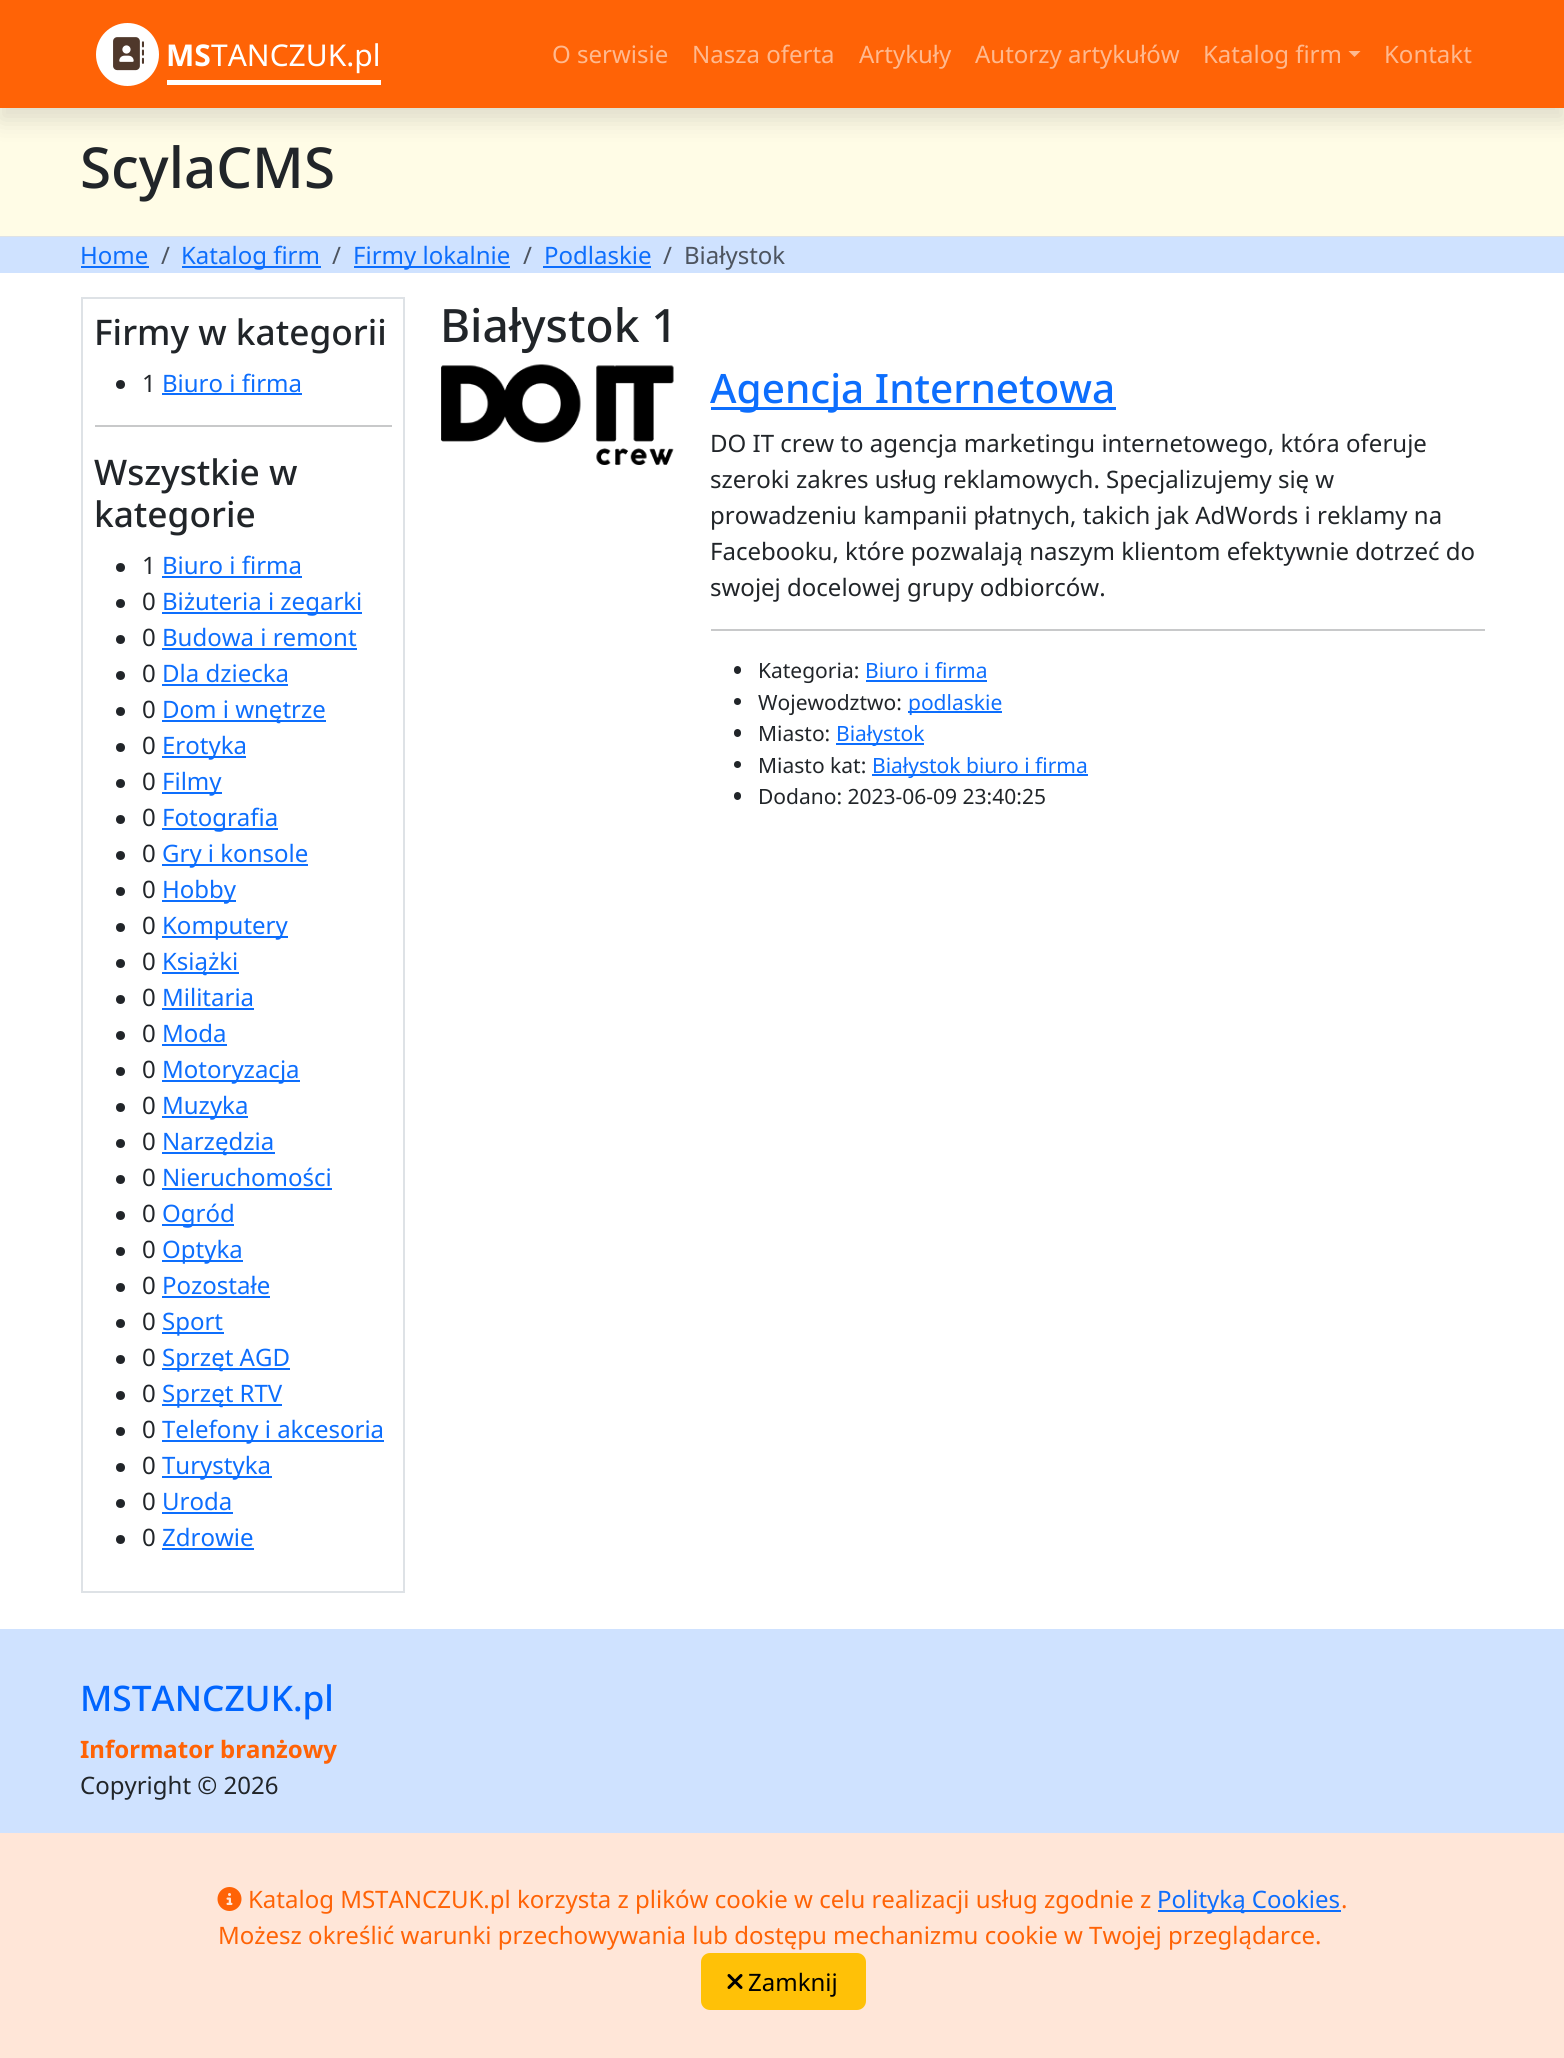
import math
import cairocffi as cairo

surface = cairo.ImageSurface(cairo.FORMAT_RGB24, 1564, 2058)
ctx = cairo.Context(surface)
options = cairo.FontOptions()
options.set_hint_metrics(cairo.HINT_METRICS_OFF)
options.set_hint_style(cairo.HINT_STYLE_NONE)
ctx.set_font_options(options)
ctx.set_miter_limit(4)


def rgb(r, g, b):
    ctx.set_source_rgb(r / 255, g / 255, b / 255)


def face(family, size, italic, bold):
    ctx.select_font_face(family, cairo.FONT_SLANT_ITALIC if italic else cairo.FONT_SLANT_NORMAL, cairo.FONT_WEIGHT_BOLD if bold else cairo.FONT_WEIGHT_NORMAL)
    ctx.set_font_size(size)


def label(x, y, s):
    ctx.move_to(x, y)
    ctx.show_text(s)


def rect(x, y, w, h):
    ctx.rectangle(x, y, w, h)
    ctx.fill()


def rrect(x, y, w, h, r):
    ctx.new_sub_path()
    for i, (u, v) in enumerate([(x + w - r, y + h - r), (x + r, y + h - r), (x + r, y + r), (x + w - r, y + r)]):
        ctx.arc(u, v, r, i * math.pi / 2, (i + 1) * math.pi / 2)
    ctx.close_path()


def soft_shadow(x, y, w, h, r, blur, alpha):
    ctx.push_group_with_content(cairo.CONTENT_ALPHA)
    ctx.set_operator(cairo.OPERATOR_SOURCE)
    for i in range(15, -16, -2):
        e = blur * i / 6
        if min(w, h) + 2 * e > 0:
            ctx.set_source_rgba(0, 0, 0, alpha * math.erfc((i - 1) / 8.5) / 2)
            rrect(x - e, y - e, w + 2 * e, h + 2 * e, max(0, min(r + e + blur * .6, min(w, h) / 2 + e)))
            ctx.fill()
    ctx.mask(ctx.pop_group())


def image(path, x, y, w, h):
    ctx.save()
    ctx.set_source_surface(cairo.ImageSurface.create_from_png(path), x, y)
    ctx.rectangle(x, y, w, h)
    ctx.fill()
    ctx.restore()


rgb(255, 255, 255)
ctx.paint()
rgb(255, 252, 230)
rect(0, 108, 1564, 128)
rgb(33, 37, 41)
soft_shadow(0, 12, 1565, 108, 0, 12, 0.15)
rgb(255, 99, 6)
rect(0, 0, 1564, 108)
rgb(255, 255, 255)
ctx.arc(127.5, 54.5, 31.5, 0, 2 * math.pi)
ctx.fill()
image('image0.png', 113, 37, 31, 34)
face('Noto Sans', 30, 0, 1)
label(166, 66, 'MS')
face('Noto Sans', 30, 0, 0)
label(211, 66, 'TANCZUK.pl')
rect(167, 80, 214, 5)
face('Noto Sans', 24, 0, 0)
rgb(255, 185, 143)
label(552, 63, 'O serwisie')
label(692, 63, 'Nasza oferta')
label(859, 63, 'Artykuły')
label(975, 63, 'Autorzy artykułów')
label(1203, 63, 'Katalog firm')
ctx.new_path()
ctx.move_to(1348.5, 51)
ctx.line_to(1360.5, 51)
ctx.line_to(1354.5, 57)
ctx.close_path()
ctx.fill()
label(1384, 63, 'Kontakt')
rgb(222, 226, 230)
rect(0, 236, 1564, 1)
face('Noto Sans Medium', 56.5, 0, 0)
rgb(33, 37, 41)
label(80, 188, 'ScylaCMS')
rgb(207, 226, 255)
rect(0, 237, 1564, 36)
face('Noto Sans', 24, 0, 0)
rgb(13, 110, 253)
label(80, 264, 'Home')
rect(81, 266, 68, 2)
rgb(77, 84, 95)
label(161, 264, '/')
rgb(13, 110, 253)
rect(182, 266, 139, 2)
label(181, 264, 'Katalog firm')
rgb(77, 84, 95)
label(332, 264, '/')
rgb(13, 110, 253)
rect(354, 266, 156, 2)
label(353, 264, 'Firmy lokalnie')
rgb(77, 84, 95)
label(523, 264, '/')
rgb(13, 110, 253)
label(544, 264, 'Podlaskie')
rect(543, 266, 108, 2)
rgb(77, 84, 95)
label(663, 264, '/')
label(684, 264, 'Białystok')
ctx.rectangle(82, 298, 322, 1294)
rgb(222, 226, 230)
ctx.stroke()
face('Noto Sans Medium', 35.25, 0, 0)
rgb(33, 37, 41)
label(94, 345, 'Firmy w kategorii')
ctx.new_path()
ctx.arc(120.5, 384.5, 4.5, 0, 2 * math.pi)
ctx.fill()
face('Noto Sans', 24, 0, 0)
label(142, 392, '1')
rgb(13, 110, 253)
label(162, 392, 'Biuro i firma')
rect(162, 393, 140, 2)
rgb(200, 201, 202)
rect(95, 425, 297, 2)
face('Noto Sans Medium', 35.25, 0, 0)
rgb(33, 37, 41)
label(94, 485, 'Wszystkie w')
label(94, 527, 'kategorie')
ctx.new_path()
ctx.arc(120.5, 567.5, 4.5, 0, 2 * math.pi)
ctx.fill()
face('Noto Sans', 24, 0, 0)
label(142, 574, '1')
rgb(13, 110, 253)
label(162, 574, 'Biuro i firma')
rect(162, 576, 140, 2)
rgb(33, 37, 41)
ctx.new_path()
ctx.arc(120.5, 603.5, 4.5, 0, 2 * math.pi)
ctx.fill()
label(142, 610, '0')
rgb(13, 110, 253)
rect(162, 612, 200, 2)
label(162, 610, 'Biżuteria i zegarki')
rgb(33, 37, 41)
ctx.new_path()
ctx.arc(120.5, 639.5, 4.5, 0, 2 * math.pi)
ctx.fill()
label(142, 646, '0')
rgb(13, 110, 253)
label(162, 646, 'Budowa i remont')
rect(162, 648, 195, 2)
rgb(33, 37, 41)
ctx.new_path()
ctx.arc(120.5, 675.5, 4.5, 0, 2 * math.pi)
ctx.fill()
label(142, 682, '0')
rgb(13, 110, 253)
label(162, 682, 'Dla dziecka')
rect(162, 684, 126, 2)
rgb(33, 37, 41)
ctx.new_path()
ctx.arc(120.5, 711.5, 4.5, 0, 2 * math.pi)
ctx.fill()
label(142, 718, '0')
rgb(13, 110, 253)
rect(162, 720, 164, 2)
label(162, 718, 'Dom i wnętrze')
rgb(33, 37, 41)
ctx.new_path()
ctx.arc(120.5, 747.5, 4.5, 0, 2 * math.pi)
ctx.fill()
label(142, 754, '0')
rgb(13, 110, 253)
rect(162, 756, 84, 2)
label(162, 754, 'Erotyka')
rgb(33, 37, 41)
ctx.new_path()
ctx.arc(120.5, 783.5, 4.5, 0, 2 * math.pi)
ctx.fill()
label(142, 790, '0')
rgb(13, 110, 253)
rect(162, 792, 60, 2)
label(162, 790, 'Filmy')
rgb(33, 37, 41)
ctx.new_path()
ctx.arc(120.5, 819.5, 4.5, 0, 2 * math.pi)
ctx.fill()
label(142, 826, '0')
rgb(13, 110, 253)
rect(162, 828, 116, 2)
label(162, 826, 'Fotografia')
rgb(33, 37, 41)
ctx.new_path()
ctx.arc(120.5, 855.5, 4.5, 0, 2 * math.pi)
ctx.fill()
label(142, 862, '0')
rgb(13, 110, 253)
rect(162, 864, 146, 2)
label(162, 862, 'Gry i konsole')
rgb(33, 37, 41)
ctx.new_path()
ctx.arc(120.5, 891.5, 4.5, 0, 2 * math.pi)
ctx.fill()
label(142, 898, '0')
rgb(13, 110, 253)
rect(162, 900, 74, 2)
label(162, 898, 'Hobby')
rgb(33, 37, 41)
ctx.new_path()
ctx.arc(120.5, 927.5, 4.5, 0, 2 * math.pi)
ctx.fill()
label(142, 934, '0')
rgb(13, 110, 253)
rect(162, 936, 126, 2)
label(162, 934, 'Komputery')
rgb(33, 37, 41)
ctx.new_path()
ctx.arc(120.5, 963.5, 4.5, 0, 2 * math.pi)
ctx.fill()
label(142, 970, '0')
rgb(13, 110, 253)
rect(162, 972, 77, 2)
label(162, 970, 'Książki')
rgb(33, 37, 41)
ctx.new_path()
ctx.arc(120.5, 999.5, 4.5, 0, 2 * math.pi)
ctx.fill()
label(142, 1006, '0')
rgb(13, 110, 253)
label(162, 1006, 'Militaria')
rect(162, 1008, 92, 2)
rgb(33, 37, 41)
ctx.new_path()
ctx.arc(120.5, 1035.5, 4.5, 0, 2 * math.pi)
ctx.fill()
label(142, 1042, '0')
rgb(13, 110, 253)
label(162, 1042, 'Moda')
rect(162, 1044, 65, 2)
rgb(33, 37, 41)
ctx.new_path()
ctx.arc(120.5, 1071.5, 4.5, 0, 2 * math.pi)
ctx.fill()
label(142, 1078, '0')
rgb(13, 110, 253)
rect(162, 1080, 138, 2)
label(162, 1078, 'Motoryzacja')
rgb(33, 37, 41)
ctx.new_path()
ctx.arc(120.5, 1107.5, 4.5, 0, 2 * math.pi)
ctx.fill()
label(142, 1114, '0')
rgb(13, 110, 253)
rect(162, 1116, 86, 2)
label(162, 1114, 'Muzyka')
rgb(33, 37, 41)
ctx.new_path()
ctx.arc(120.5, 1143.5, 4.5, 0, 2 * math.pi)
ctx.fill()
label(142, 1150, '0')
rgb(13, 110, 253)
rect(162, 1152, 113, 2)
label(162, 1150, 'Narzędzia')
rgb(33, 37, 41)
ctx.new_path()
ctx.arc(120.5, 1179.5, 4.5, 0, 2 * math.pi)
ctx.fill()
label(142, 1186, '0')
rgb(13, 110, 253)
label(162, 1186, 'Nieruchomości')
rect(162, 1188, 170, 2)
rgb(33, 37, 41)
ctx.new_path()
ctx.arc(120.5, 1215.5, 4.5, 0, 2 * math.pi)
ctx.fill()
label(142, 1222, '0')
rgb(13, 110, 253)
rect(162, 1224, 72, 2)
label(162, 1222, 'Ogród')
rgb(33, 37, 41)
ctx.new_path()
ctx.arc(120.5, 1251.5, 4.5, 0, 2 * math.pi)
ctx.fill()
label(142, 1258, '0')
rgb(13, 110, 253)
rect(162, 1260, 81, 2)
label(162, 1258, 'Optyka')
rgb(33, 37, 41)
ctx.new_path()
ctx.arc(120.5, 1287.5, 4.5, 0, 2 * math.pi)
ctx.fill()
label(142, 1294, '0')
rgb(13, 110, 253)
label(162, 1294, 'Pozostałe')
rect(162, 1296, 108, 2)
rgb(33, 37, 41)
ctx.new_path()
ctx.arc(120.5, 1323.5, 4.5, 0, 2 * math.pi)
ctx.fill()
label(142, 1330, '0')
rgb(13, 110, 253)
rect(162, 1332, 62, 2)
label(162, 1330, 'Sport')
rgb(33, 37, 41)
ctx.new_path()
ctx.arc(120.5, 1359.5, 4.5, 0, 2 * math.pi)
ctx.fill()
label(142, 1366, '0')
rgb(13, 110, 253)
rect(162, 1368, 128, 2)
label(162, 1366, 'Sprzęt AGD')
rgb(33, 37, 41)
ctx.new_path()
ctx.arc(120.5, 1395.5, 4.5, 0, 2 * math.pi)
ctx.fill()
label(142, 1402, '0')
rgb(13, 110, 253)
rect(162, 1404, 120, 2)
label(162, 1402, 'Sprzęt RTV')
rgb(33, 37, 41)
ctx.new_path()
ctx.arc(120.5, 1431.5, 4.5, 0, 2 * math.pi)
ctx.fill()
label(142, 1438, '0')
rgb(13, 110, 253)
rect(162, 1440, 222, 2)
label(162, 1438, 'Telefony i akcesoria')
rgb(33, 37, 41)
ctx.new_path()
ctx.arc(120.5, 1467.5, 4.5, 0, 2 * math.pi)
ctx.fill()
label(142, 1474, '0')
rgb(13, 110, 253)
rect(162, 1476, 110, 2)
label(162, 1474, 'Turystyka')
rgb(33, 37, 41)
ctx.new_path()
ctx.arc(120.5, 1503.5, 4.5, 0, 2 * math.pi)
ctx.fill()
label(142, 1510, '0')
rgb(13, 110, 253)
label(162, 1510, 'Uroda')
rect(162, 1512, 71, 2)
rgb(33, 37, 41)
ctx.new_path()
ctx.arc(120.5, 1539.5, 4.5, 0, 2 * math.pi)
ctx.fill()
label(142, 1546, '0')
rgb(13, 110, 253)
label(162, 1546, 'Zdrowie')
rect(162, 1548, 92, 2)
face('Noto Sans Medium', 46, 0, 0)
rgb(33, 37, 41)
label(440, 342, 'Białystok 1')
image('image1.png', 441, 364, 233, 101)
rgb(13, 110, 253)
rect(711, 407, 405, 3)
face('Noto Sans Medium', 40.5, 0, 0)
label(710, 403, 'Agencja Internetowa')
face('Noto Sans', 24, 0, 0)
rgb(33, 37, 41)
label(710, 452, 'DO IT crew to agencja marketingu internetowego, która oferuje')
label(710, 488, 'szeroki zakres usług reklamowych. Specjalizujemy się w')
label(710, 524, 'prowadzeniu kampanii płatnych, takich jak AdWords i reklamy na')
label(710, 560, 'Facebooku, które pozwalają naszym klientom efektywnie dotrzeć do')
label(710, 596, 'swojej docelowej grupy odbiorców.')
rgb(200, 201, 202)
rect(711, 629, 774, 2)
rgb(33, 37, 41)
rrect(734, 666, 7, 8, 3.5)
ctx.fill()
face('Noto Sans', 21, 0, 0)
label(758, 678, 'Kategoria:')
rgb(13, 110, 253)
label(865, 678, 'Biuro i firma')
rect(866, 680, 121, 2)
rgb(33, 37, 41)
ctx.new_path()
ctx.arc(737.5, 701.5, 3.5, 0, 2 * math.pi)
ctx.fill()
label(758, 710, 'Wojewodztwo:')
rgb(13, 110, 253)
rect(908, 711, 94, 2)
label(908, 710, 'podlaskie')
rgb(33, 37, 41)
rrect(734, 729, 7, 8, 3.5)
ctx.fill()
label(758, 741, 'Miasto:')
rgb(13, 110, 253)
rect(836, 743, 88, 2)
label(836, 741, 'Białystok')
rgb(33, 37, 41)
ctx.new_path()
ctx.arc(737.5, 764.5, 3.5, 0, 2 * math.pi)
ctx.fill()
label(758, 773, 'Miasto kat:')
rgb(13, 110, 253)
rect(872, 774, 216, 2)
label(872, 773, 'Białystok biuro i firma')
rgb(33, 37, 41)
rrect(734, 792, 7, 8, 3.5)
ctx.fill()
label(758, 804, 'Dodano: 2023-06-09 23:40:25')
rgb(207, 226, 255)
rect(0, 1629, 1564, 204)
face('Noto Sans Medium', 35.25, 0, 0)
rgb(0, 101, 255)
label(80, 1711, 'MSTANCZUK.pl')
face('Noto Sans', 24, 0, 1)
rgb(255, 99, 6)
label(80, 1758, 'Informator branżowy')
face('Noto Sans', 24, 0, 0)
rgb(33, 37, 41)
label(80, 1794, 'Copyright © 2026')
rgb(255, 230, 216)
rect(0, 1833, 1564, 225)
image('image2.png', 217, 1887, 25, 24)
rgb(255, 99, 6)
label(248, 1908, 'Katalog MSTANCZUK.pl korzysta z plików cookie w celu realizacji usług zgodnie z')
rgb(13, 110, 253)
rect(1158, 1910, 183, 2)
label(1157, 1908, 'Polityką Cookies')
rgb(255, 99, 6)
label(1341, 1908, '.')
label(218, 1944, 'Możesz określić warunki przechowywania lub dostępu mechanizmu cookie w Twojej przeglądarce.')
rgb(255, 193, 7)
rrect(702, 1954, 163, 55, 8)
ctx.fill_preserve()
ctx.stroke()
image('image3.png', 727, 1974, 16, 15)
rgb(0, 0, 0)
label(748, 1991, 'Zamknij')
surface.write_to_png('render.png')
